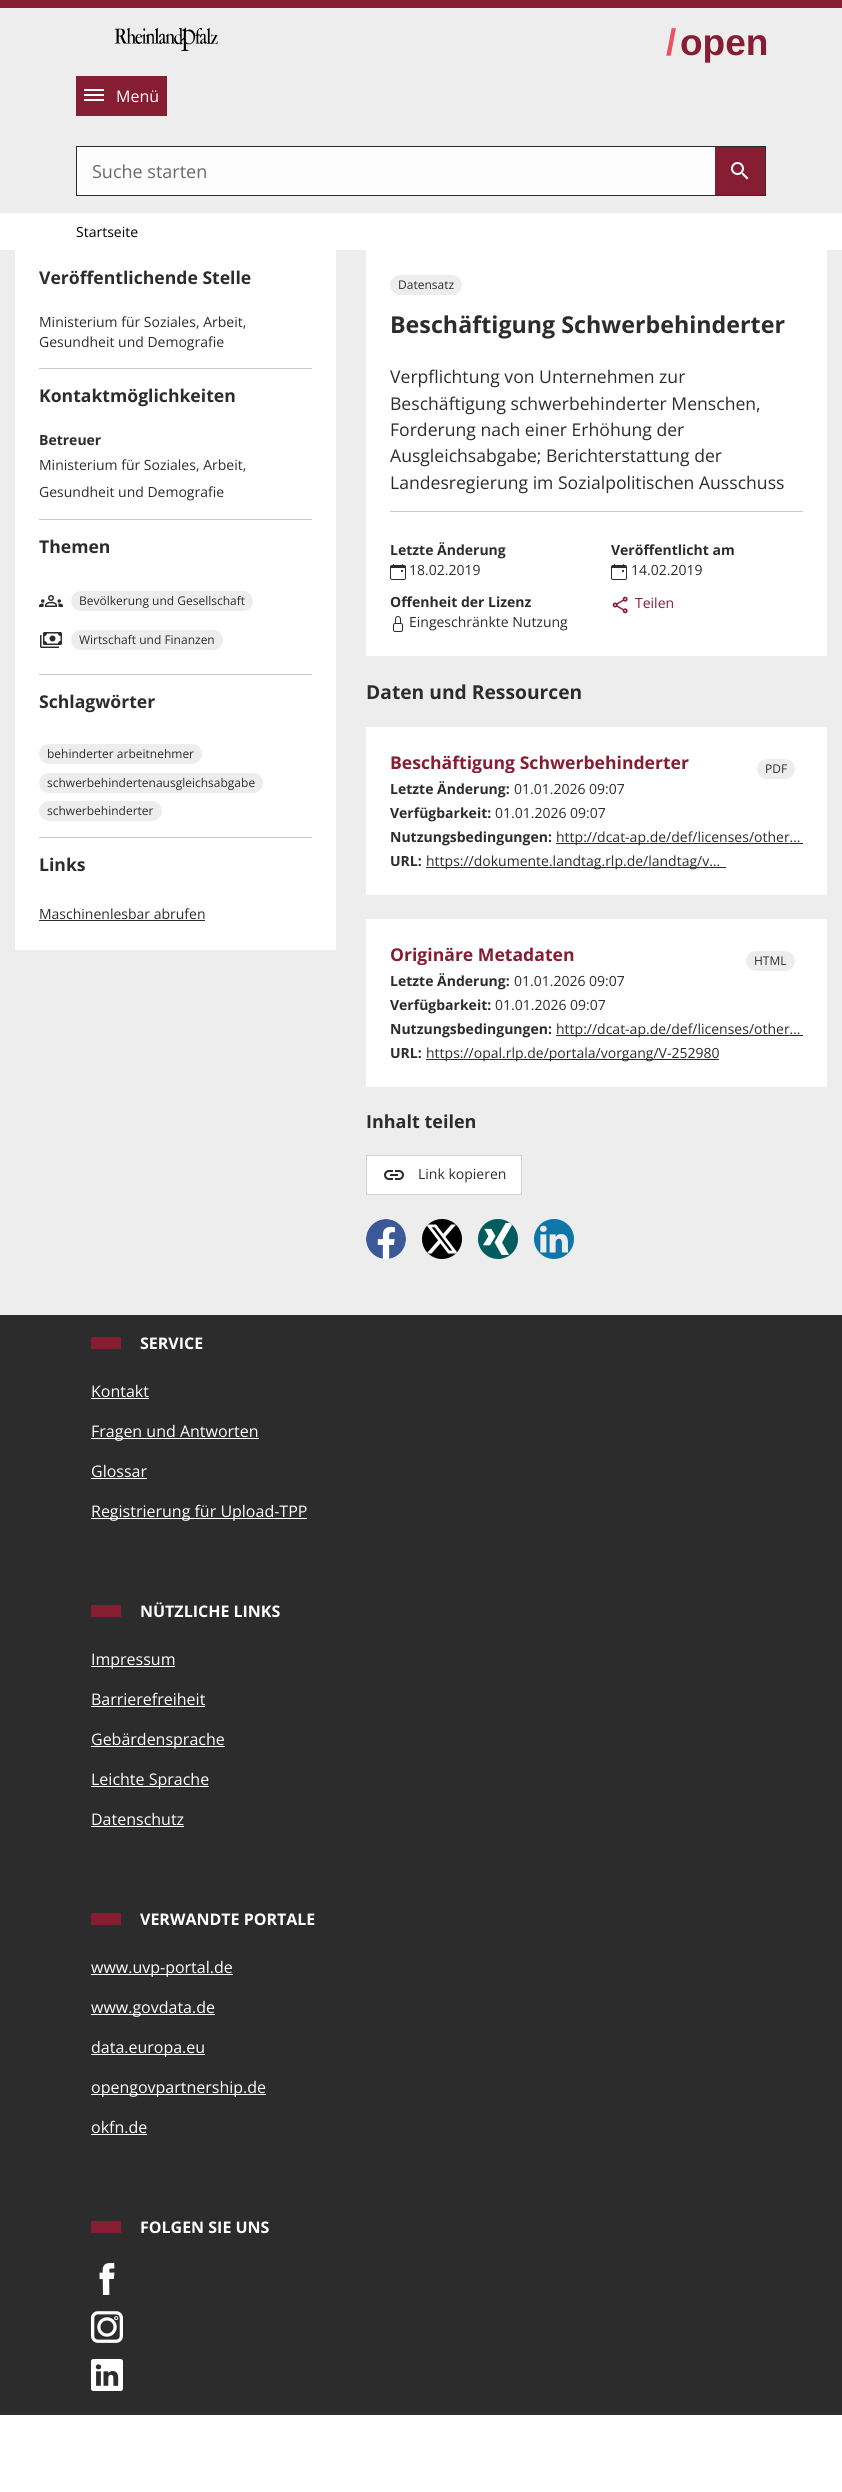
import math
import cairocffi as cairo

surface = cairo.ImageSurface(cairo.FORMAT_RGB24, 842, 2492)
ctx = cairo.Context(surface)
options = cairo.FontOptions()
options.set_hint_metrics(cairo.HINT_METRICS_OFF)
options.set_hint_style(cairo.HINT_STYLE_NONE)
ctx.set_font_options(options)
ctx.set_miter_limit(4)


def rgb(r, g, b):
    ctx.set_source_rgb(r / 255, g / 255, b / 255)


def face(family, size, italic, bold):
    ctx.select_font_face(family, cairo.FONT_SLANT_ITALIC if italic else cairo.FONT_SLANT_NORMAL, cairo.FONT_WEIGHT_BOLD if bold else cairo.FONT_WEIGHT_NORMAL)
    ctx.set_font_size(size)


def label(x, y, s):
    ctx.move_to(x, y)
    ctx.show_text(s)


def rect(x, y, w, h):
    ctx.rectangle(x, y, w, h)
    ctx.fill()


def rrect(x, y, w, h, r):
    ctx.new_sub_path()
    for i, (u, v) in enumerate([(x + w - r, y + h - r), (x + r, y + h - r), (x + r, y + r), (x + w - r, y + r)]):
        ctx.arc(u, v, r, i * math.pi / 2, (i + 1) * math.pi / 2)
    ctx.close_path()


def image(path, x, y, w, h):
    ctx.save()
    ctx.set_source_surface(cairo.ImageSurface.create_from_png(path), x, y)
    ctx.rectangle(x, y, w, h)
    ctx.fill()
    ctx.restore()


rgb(255, 255, 255)
ctx.paint()
rgb(135, 29, 51)
rect(0, 0, 842, 8)
rgb(237, 237, 237)
rect(0, 8, 842, 205)
image('image0.png', 114, 27, 104, 24)
face('Liberation Sans', 37, 0, 1)
rgb(237, 80, 99)
label(666, 55, '/')
rgb(135, 29, 51)
label(680, 55, 'open')
rect(76, 76, 91, 40)
rgb(255, 255, 255)
rect(84, 89, 20, 2)
rect(84, 94, 20, 2)
face('Open Sans', 16, 0, 0)
label(116, 102, 'Menü')
rect(84, 99, 20, 2)
ctx.rectangle(76.5, 146.5, 689, 49)
rgb(44, 44, 44)
ctx.set_line_width(1)
ctx.stroke()
rgb(253, 253, 253)
rect(77, 147, 638, 48)
face('Open Sans', 18, 0, 0)
rgb(100, 106, 112)
label(92, 178, 'Suche starten')
rgb(135, 29, 51)
rect(715, 147, 50, 48)
image('image1.png', 731, 162, 18, 18)
face('Open Sans', 14, 0, 0)
rgb(0, 0, 0)
label(76, 237, 'Startseite')
rgb(237, 237, 237)
rect(0, 250, 842, 1065)
rgb(255, 255, 255)
rect(15, 250, 321, 700)
face('Open Sans', 17.6, 0, 1)
rgb(44, 44, 44)
label(39, 284, 'Veröffentlichende Stelle')
face('Open Sans', 14, 0, 0)
label(39, 327, 'Ministerium für Soziales, Arbeit,')
label(39, 347, 'Gesundheit und Demografie')
rgb(202, 202, 202)
rect(39, 368, 273, 1)
face('Open Sans', 17.6, 0, 1)
rgb(44, 44, 44)
label(39, 402, 'Kontaktmöglichkeiten')
face('Open Sans', 14, 0, 1)
label(39, 445, 'Betreuer')
face('Open Sans', 14, 0, 0)
label(39, 470, 'Ministerium für Soziales, Arbeit,')
label(39, 497, 'Gesundheit und Demografie')
rgb(202, 202, 202)
rect(39, 519, 273, 1)
face('Open Sans', 17.6, 0, 1)
rgb(44, 44, 44)
label(39, 553, 'Themen')
image('image2.png', 39, 595, 24, 12)
rgb(237, 237, 237)
rrect(71, 591, 182, 20, 10)
ctx.fill()
face('Open Sans', 12, 0, 0)
rgb(44, 44, 44)
label(79, 605, 'Bevölkerung und Gesellschaft')
image('image3.png', 40, 632, 22, 16)
rgb(237, 237, 237)
rrect(71, 630, 152, 20, 10)
ctx.fill()
rgb(44, 44, 44)
label(79, 644, 'Wirtschaft und Finanzen')
rgb(202, 202, 202)
rect(39, 674, 273, 1)
face('Open Sans', 17.6, 0, 1)
rgb(44, 44, 44)
label(39, 708, 'Schlagwörter')
rgb(237, 237, 237)
rrect(39, 744, 163, 20, 10)
ctx.fill()
face('Open Sans', 12, 0, 0)
rgb(44, 44, 44)
label(47, 758, 'behinderter arbeitnehmer')
rgb(237, 237, 237)
rrect(39, 773, 224, 20, 10)
ctx.fill()
rgb(44, 44, 44)
label(47, 787, 'schwerbehindertenausgleichsabgabe')
rgb(237, 237, 237)
rrect(39, 801, 123, 20, 10)
ctx.fill()
rgb(44, 44, 44)
label(47, 815, 'schwerbehinderter')
rgb(202, 202, 202)
rect(39, 837, 273, 1)
face('Open Sans', 17.6, 0, 1)
rgb(44, 44, 44)
label(39, 871, 'Links')
face('Open Sans', 14, 0, 0)
label(39, 919, 'Maschinenlesbar abrufen')
rect(39, 920, 166, 1)
rgb(255, 255, 255)
rect(366, 250, 461, 406)
rgb(237, 237, 237)
rrect(390, 275, 72, 20, 10)
ctx.fill()
face('Open Sans', 12, 0, 0)
rgb(44, 44, 44)
label(398, 289, 'Datensatz')
face('Open Sans', 23.25, 0, 1)
label(390, 333, 'Beschäftigung Schwerbehinderter')
face('Open Sans', 17.6, 0, 0)
label(390, 383, 'Verpflichtung von Unternehmen zur')
label(390, 410, 'Beschäftigung schwerbehinderter Menschen,')
label(390, 436, 'Forderung nach einer Erhöhung der')
label(390, 462, 'Ausgleichsabgabe; Berichterstattung der')
label(390, 489, 'Landesregierung im Sozialpolitischen Ausschuss')
rgb(202, 202, 202)
rect(390, 511, 413, 1)
face('Open Sans', 14, 0, 1)
rgb(44, 44, 44)
label(390, 555, 'Letzte Änderung')
image('image4.png', 390, 564, 16, 16)
face('Open Sans', 14, 0, 0)
label(409, 575, '18.02.2019')
face('Open Sans', 14, 0, 1)
label(611, 555, 'Veröffentlicht am')
image('image4.png', 611, 564, 16, 16)
face('Open Sans', 14, 0, 0)
label(631, 575, '14.02.2019')
face('Open Sans', 14, 0, 1)
label(390, 607, 'Offenheit der Lizenz')
image('image5.png', 393, 616, 10, 16)
face('Open Sans', 14, 0, 0)
label(409, 627, 'Eingeschränkte Nutzung')
image('image6.png', 612, 596, 16, 18)
rgb(135, 29, 51)
label(635, 608, 'Teilen')
face('Open Sans', 19.25, 0, 1)
rgb(44, 44, 44)
label(366, 699, 'Daten und Ressourcen')
rgb(255, 255, 255)
rect(366, 727, 461, 168)
ctx.save()
ctx.rectangle(390, 752, 299, 21)
ctx.clip()
face('Open Sans', 17.6, 0, 1)
rgb(135, 29, 51)
label(390, 769, 'Beschäftigung Schwerbehinderter')
ctx.restore()
rgb(237, 237, 237)
rrect(757, 759, 38, 20, 10)
ctx.fill()
face('Open Sans', 12, 0, 0)
rgb(44, 44, 44)
label(765, 773, 'PDF')
face('Open Sans', 14, 0, 1)
label(390, 794, 'Letzte Änderung:')
face('Open Sans', 14, 0, 0)
label(514, 794, '01.01.2026 09:07')
face('Open Sans', 14, 0, 1)
label(390, 818, 'Verfügbarkeit:')
face('Open Sans', 14, 0, 0)
label(495, 818, '01.01.2026 09:07')
face('Open Sans', 14, 0, 1)
label(390, 842, 'Nutzungsbedingungen:')
rect(556, 843, 247, 1)
face('Open Sans', 14, 0, 0)
label(556, 842, 'http://dcat-ap.de/def/licenses/other…')
face('Open Sans', 14, 0, 1)
label(390, 866, 'URL:')
rect(426, 867, 300, 1)
face('Open Sans', 14, 0, 0)
label(426, 866, 'https://dokumente.landtag.rlp.de/landtag/v…')
rgb(255, 255, 255)
rect(366, 919, 461, 168)
ctx.save()
ctx.rectangle(390, 944, 184, 21)
ctx.clip()
face('Open Sans', 17.6, 0, 1)
rgb(135, 29, 51)
label(390, 961, 'Originäre Metadaten')
ctx.restore()
rgb(237, 237, 237)
rrect(746, 951, 49, 20, 10)
ctx.fill()
face('Open Sans', 12, 0, 0)
rgb(44, 44, 44)
label(754, 965, 'HTML')
face('Open Sans', 14, 0, 1)
label(390, 986, 'Letzte Änderung:')
face('Open Sans', 14, 0, 0)
label(514, 986, '01.01.2026 09:07')
face('Open Sans', 14, 0, 1)
label(390, 1010, 'Verfügbarkeit:')
face('Open Sans', 14, 0, 0)
label(495, 1010, '01.01.2026 09:07')
face('Open Sans', 14, 0, 1)
label(390, 1034, 'Nutzungsbedingungen:')
rect(556, 1035, 247, 1)
face('Open Sans', 14, 0, 0)
label(556, 1034, 'http://dcat-ap.de/def/licenses/other…')
face('Open Sans', 14, 0, 1)
label(390, 1058, 'URL:')
rect(426, 1059, 293, 1)
face('Open Sans', 14, 0, 0)
label(426, 1058, 'https://opal.rlp.de/portala/vorgang/V-252980')
face('Open Sans', 18, 0, 1)
label(366, 1128, 'Inhalt teilen')
rgb(255, 255, 255)
rect(367, 1156, 154, 38)
ctx.rectangle(366.5, 1155.5, 155, 39)
rgb(208, 208, 208)
ctx.stroke()
image('image7.png', 384, 1170, 20, 10)
face('Open Sans', 14, 0, 0)
rgb(44, 44, 44)
label(418, 1179, 'Link kopieren')
rgb(255, 255, 255)
ctx.new_path()
ctx.arc(386, 1239, 20, 0, 2 * math.pi)
ctx.fill()
image('image8.png', 366, 1219, 40, 40)
rgb(0, 0, 0)
ctx.arc(442, 1239, 20, 0, 2 * math.pi)
ctx.fill()
image('image9.png', 427, 1224, 30, 30)
rgb(1, 92, 93)
ctx.arc(498, 1239, 20, 0, 2 * math.pi)
ctx.fill()
image('image10.png', 483, 1223, 29, 32)
image('image11.png', 534, 1219, 40, 40)
rgb(44, 44, 44)
rect(0, 1315, 842, 1100)
rgb(135, 29, 51)
rect(91, 1337, 30, 12)
face('Open Sans', 16, 0, 1)
rgb(255, 255, 255)
label(140, 1349, 'SERVICE')
face('Open Sans', 16, 0, 0)
label(91, 1397, 'Kontakt')
rect(91, 1398, 58, 1)
rect(91, 1438, 168, 1)
label(91, 1437, 'Fragen und Antworten')
label(91, 1477, 'Glossar')
rect(91, 1478, 56, 1)
rect(91, 1518, 216, 1)
label(91, 1517, 'Registrierung für Upload-TPP')
rgb(135, 29, 51)
rect(91, 1605, 30, 12)
face('Open Sans', 16, 0, 1)
rgb(255, 255, 255)
label(140, 1617, 'NÜTZLICHE LINKS')
rect(91, 1666, 84, 1)
face('Open Sans', 16, 0, 0)
label(91, 1665, 'Impressum')
label(91, 1705, 'Barrierefreiheit')
rect(91, 1706, 114, 1)
rect(91, 1746, 134, 1)
label(91, 1745, 'Gebärdensprache')
rect(91, 1786, 118, 1)
label(91, 1785, 'Leichte Sprache')
label(91, 1825, 'Datenschutz')
rect(91, 1826, 93, 1)
rgb(135, 29, 51)
rect(91, 1913, 30, 12)
face('Open Sans', 16, 0, 1)
rgb(255, 255, 255)
label(140, 1925, 'VERWANDTE PORTALE')
rect(91, 1974, 142, 1)
face('Open Sans', 16, 0, 0)
label(91, 1973, 'www.uvp-portal.de')
rect(91, 2014, 124, 1)
label(91, 2013, 'www.govdata.de')
rect(91, 2054, 114, 1)
label(91, 2053, 'data.europa.eu')
rect(91, 2094, 175, 1)
label(91, 2093, 'opengovpartnership.de')
label(91, 2133, 'okfn.de')
rect(91, 2134, 56, 1)
rgb(135, 29, 51)
rect(91, 2221, 30, 12)
face('Open Sans', 16, 0, 1)
rgb(255, 255, 255)
label(140, 2233, 'FOLGEN SIE UNS')
image('image12.png', 99, 2263, 16, 32)
image('image13.png', 91, 2311, 32, 32)
image('image14.png', 91, 2359, 32, 32)
surface.write_to_png('render.png')
